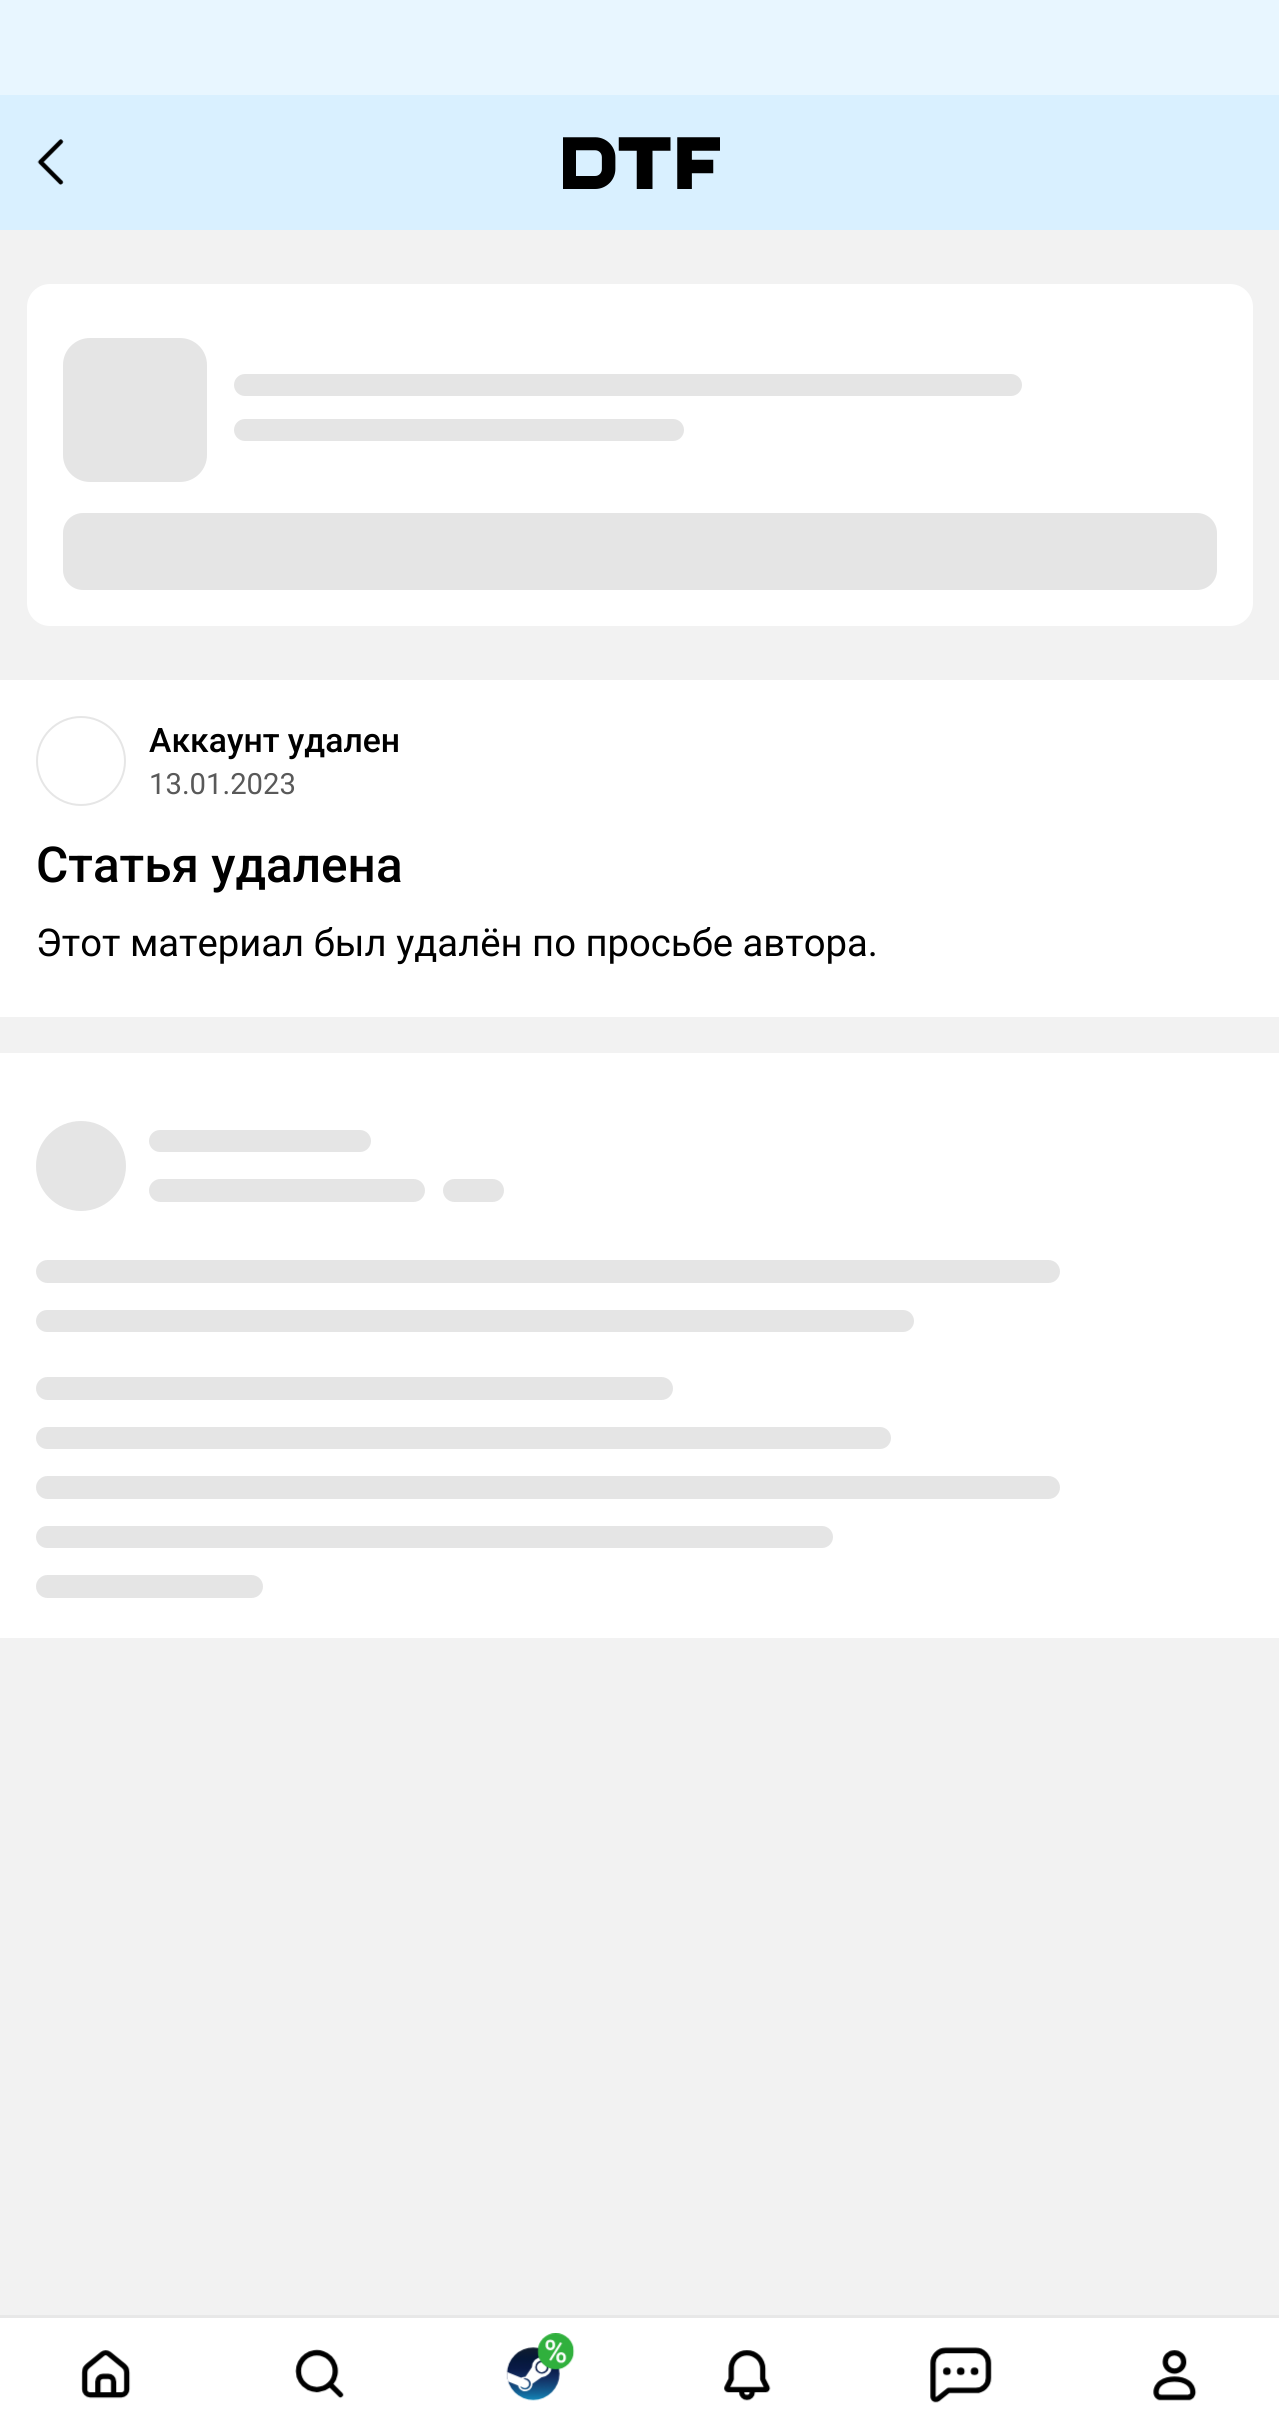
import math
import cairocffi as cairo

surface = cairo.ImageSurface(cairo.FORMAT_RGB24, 1279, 2428)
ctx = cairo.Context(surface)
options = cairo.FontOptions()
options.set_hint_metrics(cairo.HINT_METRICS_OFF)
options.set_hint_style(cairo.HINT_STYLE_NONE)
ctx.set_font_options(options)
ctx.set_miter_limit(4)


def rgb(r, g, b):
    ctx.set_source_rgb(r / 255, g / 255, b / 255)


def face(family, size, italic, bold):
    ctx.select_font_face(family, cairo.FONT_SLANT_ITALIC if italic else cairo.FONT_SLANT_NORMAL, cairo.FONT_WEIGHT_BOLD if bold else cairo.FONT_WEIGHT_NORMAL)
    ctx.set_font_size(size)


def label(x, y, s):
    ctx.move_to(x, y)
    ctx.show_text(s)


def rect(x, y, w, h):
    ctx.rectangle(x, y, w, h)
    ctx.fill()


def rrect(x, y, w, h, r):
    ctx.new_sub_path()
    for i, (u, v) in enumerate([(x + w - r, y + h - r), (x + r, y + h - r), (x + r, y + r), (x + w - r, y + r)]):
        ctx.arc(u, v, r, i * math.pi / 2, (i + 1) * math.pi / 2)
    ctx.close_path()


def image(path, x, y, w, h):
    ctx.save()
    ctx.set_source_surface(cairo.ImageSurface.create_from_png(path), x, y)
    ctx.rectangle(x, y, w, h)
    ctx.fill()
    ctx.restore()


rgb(242, 242, 242)
ctx.paint()
rgb(217, 240, 255)
rect(0, 95, 1279, 135)
rgb(232, 246, 255)
rect(0, 0, 1279, 95)
image('image0.png', 37, 139, 27, 46)
image('image1.png', 563, 137, 157, 52)
rgb(255, 255, 255)
rrect(27, 284, 1226, 342, 23)
ctx.fill()
rgb(229, 229, 229)
rrect(63, 338, 144, 144, 27)
ctx.fill()
rrect(234, 374, 788, 22, 11)
ctx.fill()
rrect(234, 419, 450, 22, 11)
ctx.fill()
rrect(63, 513, 1154, 77, 20)
ctx.fill()
rgb(255, 255, 255)
rect(0, 680, 1279, 337)
ctx.arc(81, 761, 44, 0, 2 * math.pi)
rgb(230, 230, 230)
ctx.stroke()
face('Roboto Medium', 33.75, 0, 0)
rgb(0, 0, 0)
label(149, 752, 'Аккаунт удален')
face('Roboto', 29.25, 0, 0)
rgb(89, 89, 89)
label(149, 794, '13.01.2023')
face('Roboto Medium', 49.5, 0, 0)
rgb(0, 0, 0)
label(36, 882, 'Статья удалена')
face('Roboto', 38.25, 0, 0)
label(36, 956, 'Этот материал был удалён по просьбе автора.')
rgb(255, 255, 255)
rect(0, 1053, 1279, 585)
rgb(229, 229, 229)
ctx.new_path()
ctx.arc(81, 1166, 45, 0, 2 * math.pi)
ctx.fill()
rrect(149, 1130, 222, 22, 11)
ctx.fill()
rrect(149, 1179, 276, 23, 11.5)
ctx.fill()
rrect(443, 1179, 61, 23, 11.5)
ctx.fill()
rrect(36, 1260, 1024, 23, 11.5)
ctx.fill()
rrect(36, 1310, 878, 22, 11)
ctx.fill()
rrect(36, 1377, 637, 23, 11.5)
ctx.fill()
rrect(36, 1427, 855, 22, 11)
ctx.fill()
rrect(36, 1476, 1024, 23, 11.5)
ctx.fill()
rrect(36, 1526, 797, 22, 11)
ctx.fill()
rrect(36, 1575, 227, 23, 11.5)
ctx.fill()
rgb(232, 232, 232)
rect(0, 2315, 1279, 3)
rgb(255, 255, 255)
rect(0, 2318, 1279, 110)
image('image2.png', 81, 2350, 50, 49)
image('image3.png', 295, 2349, 49, 50)
image('image5.png', 506, 2347, 54, 54)
image('image4.png', 537, 2333, 38, 37)
image('image6.png', 724, 2350, 47, 51)
image('image7.png', 930, 2347, 62, 56)
image('image8.png', 1153, 2350, 44, 51)
surface.write_to_png('render.png')
